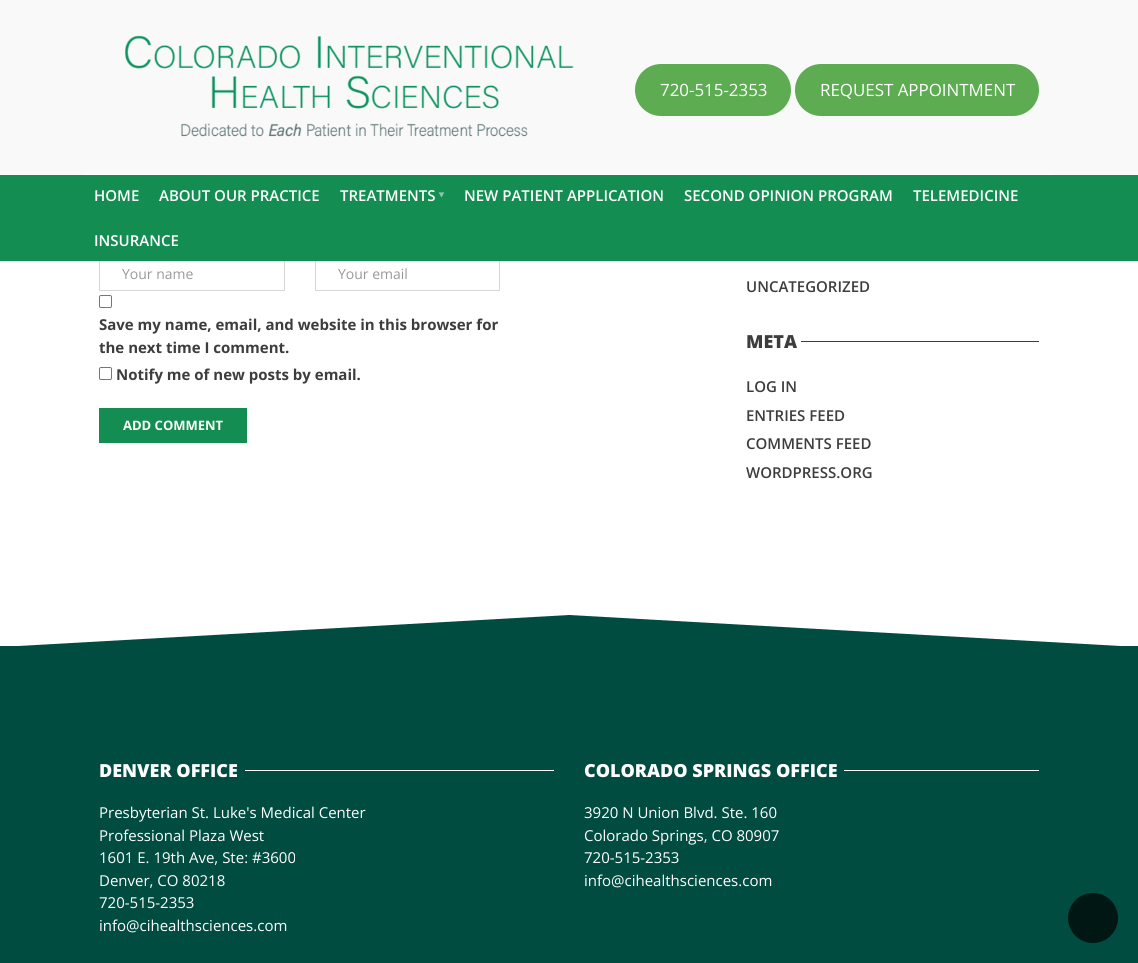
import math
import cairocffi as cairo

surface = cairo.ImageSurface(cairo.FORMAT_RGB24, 1138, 963)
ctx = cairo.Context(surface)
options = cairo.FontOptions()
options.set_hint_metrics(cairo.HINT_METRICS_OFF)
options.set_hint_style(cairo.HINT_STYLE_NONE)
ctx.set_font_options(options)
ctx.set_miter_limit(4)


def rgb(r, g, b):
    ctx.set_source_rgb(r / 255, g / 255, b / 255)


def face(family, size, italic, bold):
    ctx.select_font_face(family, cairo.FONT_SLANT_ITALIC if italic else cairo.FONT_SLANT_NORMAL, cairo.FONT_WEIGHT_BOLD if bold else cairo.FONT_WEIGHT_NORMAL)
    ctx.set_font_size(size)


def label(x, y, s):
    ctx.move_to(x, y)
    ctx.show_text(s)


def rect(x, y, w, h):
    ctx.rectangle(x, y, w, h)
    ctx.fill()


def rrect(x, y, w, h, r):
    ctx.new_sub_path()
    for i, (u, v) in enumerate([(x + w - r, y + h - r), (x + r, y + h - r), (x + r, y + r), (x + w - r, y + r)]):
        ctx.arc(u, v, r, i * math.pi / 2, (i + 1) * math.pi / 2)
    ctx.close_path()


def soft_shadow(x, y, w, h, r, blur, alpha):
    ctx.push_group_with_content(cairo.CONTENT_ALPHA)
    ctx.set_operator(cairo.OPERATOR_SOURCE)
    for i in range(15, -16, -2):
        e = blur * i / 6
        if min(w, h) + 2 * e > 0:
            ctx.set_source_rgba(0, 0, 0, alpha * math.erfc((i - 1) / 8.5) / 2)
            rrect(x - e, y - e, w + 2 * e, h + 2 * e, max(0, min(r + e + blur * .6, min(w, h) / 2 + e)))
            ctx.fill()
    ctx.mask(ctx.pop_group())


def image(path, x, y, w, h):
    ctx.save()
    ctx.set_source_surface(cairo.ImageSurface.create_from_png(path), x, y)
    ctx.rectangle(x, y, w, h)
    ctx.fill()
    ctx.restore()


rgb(255, 255, 255)
ctx.paint()
ctx.rectangle(99.5, 255.5, 185, 35)
rgb(214, 214, 214)
ctx.set_line_width(1)
ctx.stroke()
ctx.rectangle(315.5, 255.5, 184, 35)
ctx.stroke()
rgb(0, 0, 0)
soft_shadow(0, 0, 1138, 261, 0, 0.5, 0.2)
rgb(19, 141, 81)
rect(0, 175, 1138, 86)
rgb(249, 249, 249)
rect(0, 0, 1138, 175)
rgb(255, 255, 255)
rect(84, 174, 970, 1)
image('image0.png', 125, 35, 449, 102)
rgb(93, 172, 82)
rrect(635, 64, 156, 52, 26)
ctx.fill()
face('Open Sans', 16.9, 0, 0)
rgb(255, 255, 255)
label(660, 96, '720-515-2353')
rgb(93, 172, 82)
rrect(795, 64, 244, 52, 26)
ctx.fill()
rgb(255, 255, 255)
label(820, 96, 'REQUEST APPOINTMENT')
face('Open Sans SemiBold', 15, 0, 0)
label(94, 201, 'HOME')
label(159, 201, 'ABOUT OUR PRACTICE')
label(340, 201, 'TREATMENTS')
face('Noto Sans', 20, 0, 0)
rgb(137, 198, 168)
ctx.save()
ctx.translate(434, 191)
ctx.rotate(90 * math.pi / 180)
label(0, 0, '‣')
ctx.restore()
face('Open Sans SemiBold', 15, 0, 0)
rgb(255, 255, 255)
label(464, 201, 'NEW PATIENT APPLICATION')
label(684, 201, 'SECOND OPINION PROGRAM')
label(913, 201, 'TELEMEDICINE')
label(94, 246, 'INSURANCE')
face('Open Sans', 14, 0, 0)
rgb(153, 153, 153)
label(122, 279, 'Your name')
label(338, 279, 'Your email')
rrect(99.5, 295.5, 12, 12, 1.5)
rgb(118, 118, 118)
ctx.stroke()
face('Open Sans', 15, 0, 1)
rgb(61, 61, 61)
label(99, 330, 'Save my name, email, and website in this browser for')
label(99, 353, 'the next time I comment.')
rrect(99.5, 367.5, 12, 12, 1.5)
rgb(118, 118, 118)
ctx.stroke()
rgb(61, 61, 61)
label(116, 380, 'Notify me of new posts by email.')
rgb(19, 141, 81)
rect(99, 408, 148, 35)
face('Open Sans', 13, 0, 1)
rgb(255, 255, 255)
label(123, 430, 'ADD COMMENT')
face('Open Sans SemiBold', 15, 0, 0)
rgb(61, 61, 61)
label(746, 292, 'UNCATEGORIZED')
face('Open Sans ExtraBold', 18, 0, 0)
label(746, 348, 'META')
rect(801, 341, 238, 1)
face('Open Sans SemiBold', 15, 0, 0)
label(746, 392, 'LOG IN')
label(746, 421, 'ENTRIES FEED')
label(746, 449, 'COMMENTS FEED')
label(746, 478, 'WORDPRESS.ORG')
rgb(0, 76, 65)
rect(0, 646, 1138, 317)
ctx.new_path()
ctx.move_to(569, 647)
ctx.line_to(569, 615)
ctx.line_to(0, 647)
ctx.close_path()
ctx.fill()
ctx.new_path()
ctx.move_to(569, 647)
ctx.line_to(569, 615)
ctx.line_to(1138, 647)
ctx.close_path()
ctx.fill()
face('Open Sans ExtraBold', 18, 0, 0)
rgb(255, 255, 255)
label(99, 777, 'DENVER OFFICE')
rect(245, 770, 309, 1)
face('Open Sans', 15, 0, 0)
label(99, 818, 'Presbyterian St. Luke\'s Medical Center')
label(99, 841, 'Professional Plaza West')
label(99, 863, '1601 E. 19th Ave, Ste: #3600')
label(99, 886, 'Denver, CO 80218')
label(99, 908, '720-515-2353')
label(99, 931, 'info@cihealthsciences.com')
face('Open Sans ExtraBold', 18, 0, 0)
label(584, 777, 'COLORADO SPRINGS OFFICE')
rect(844, 770, 195, 1)
face('Open Sans', 15, 0, 0)
label(584, 818, '3920 N Union Blvd. Ste. 160')
label(584, 841, 'Colorado Springs, CO 80907')
label(584, 863, '720-515-2353')
label(584, 886, 'info@cihealthsciences.com')
rgb(0, 23, 20)
ctx.new_path()
ctx.arc(1093, 918, 25, 0, 2 * math.pi)
ctx.fill()
surface.write_to_png('render.png')
